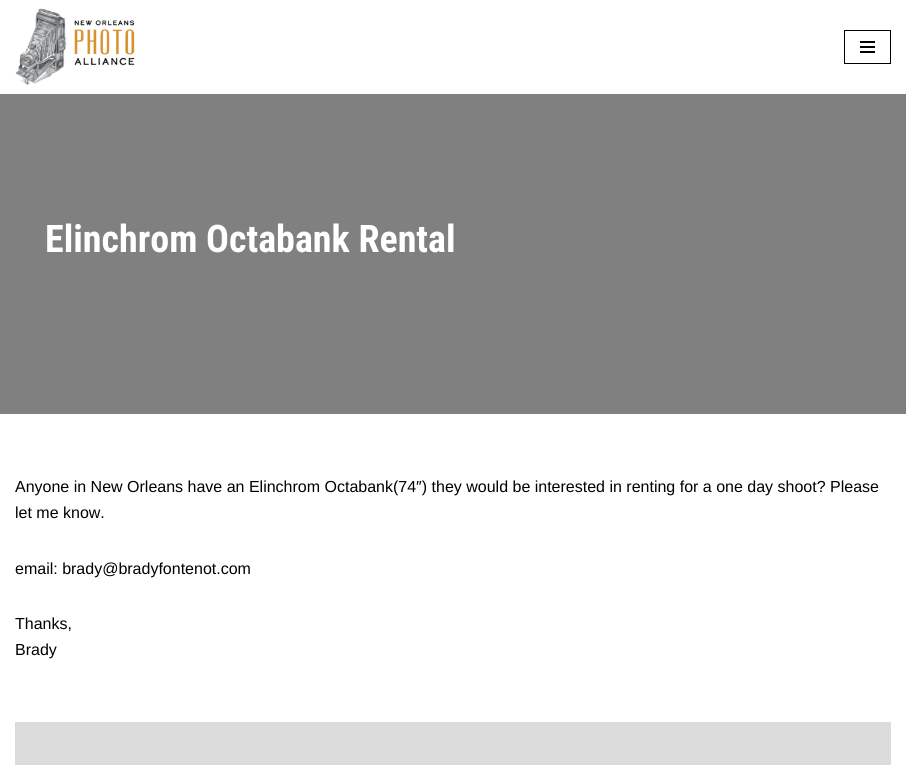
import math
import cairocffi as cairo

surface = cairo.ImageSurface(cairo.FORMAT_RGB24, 906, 765)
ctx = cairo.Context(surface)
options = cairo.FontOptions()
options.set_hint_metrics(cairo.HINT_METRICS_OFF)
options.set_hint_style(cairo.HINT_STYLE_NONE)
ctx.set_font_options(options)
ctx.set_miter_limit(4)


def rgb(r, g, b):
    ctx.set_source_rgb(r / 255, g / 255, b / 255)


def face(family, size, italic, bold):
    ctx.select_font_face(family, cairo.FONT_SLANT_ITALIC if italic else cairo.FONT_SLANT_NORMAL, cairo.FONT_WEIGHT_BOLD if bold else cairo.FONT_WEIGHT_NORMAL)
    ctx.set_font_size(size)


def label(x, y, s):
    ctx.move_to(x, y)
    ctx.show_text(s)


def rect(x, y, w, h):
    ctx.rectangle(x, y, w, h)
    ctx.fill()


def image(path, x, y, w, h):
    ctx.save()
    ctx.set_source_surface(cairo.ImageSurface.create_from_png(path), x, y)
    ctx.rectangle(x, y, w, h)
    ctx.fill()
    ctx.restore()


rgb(255, 255, 255)
ctx.paint()
rgb(128, 128, 128)
rect(0, 94, 906, 320)
image('image0.png', 15, 8, 120, 77)
ctx.rectangle(844.5, 30.5, 46, 33)
rgb(0, 0, 0)
ctx.set_line_width(1)
ctx.stroke()
rect(860, 41, 15, 2)
rect(860, 46, 15, 2)
rect(860, 51, 15, 2)
face('Roboto Condensed', 38, 0, 1)
rgb(255, 255, 255)
label(45, 252, 'Elinchrom Octabank Rental')
face('Liberation Sans', 16, 0, 0)
rgb(0, 0, 0)
label(15, 492, 'Anyone in New Orleans have an Elinchrom Octabank(74″) they would be interested in renting for a one day shoot? Please')
label(15, 518, 'let me know.')
label(15, 574, 'email: brady@bradyfontenot.com')
label(15, 629, 'Thanks,')
label(15, 655, 'Brady')
rgb(219, 219, 219)
rect(15, 722, 876, 43)
surface.write_to_png('render.png')
